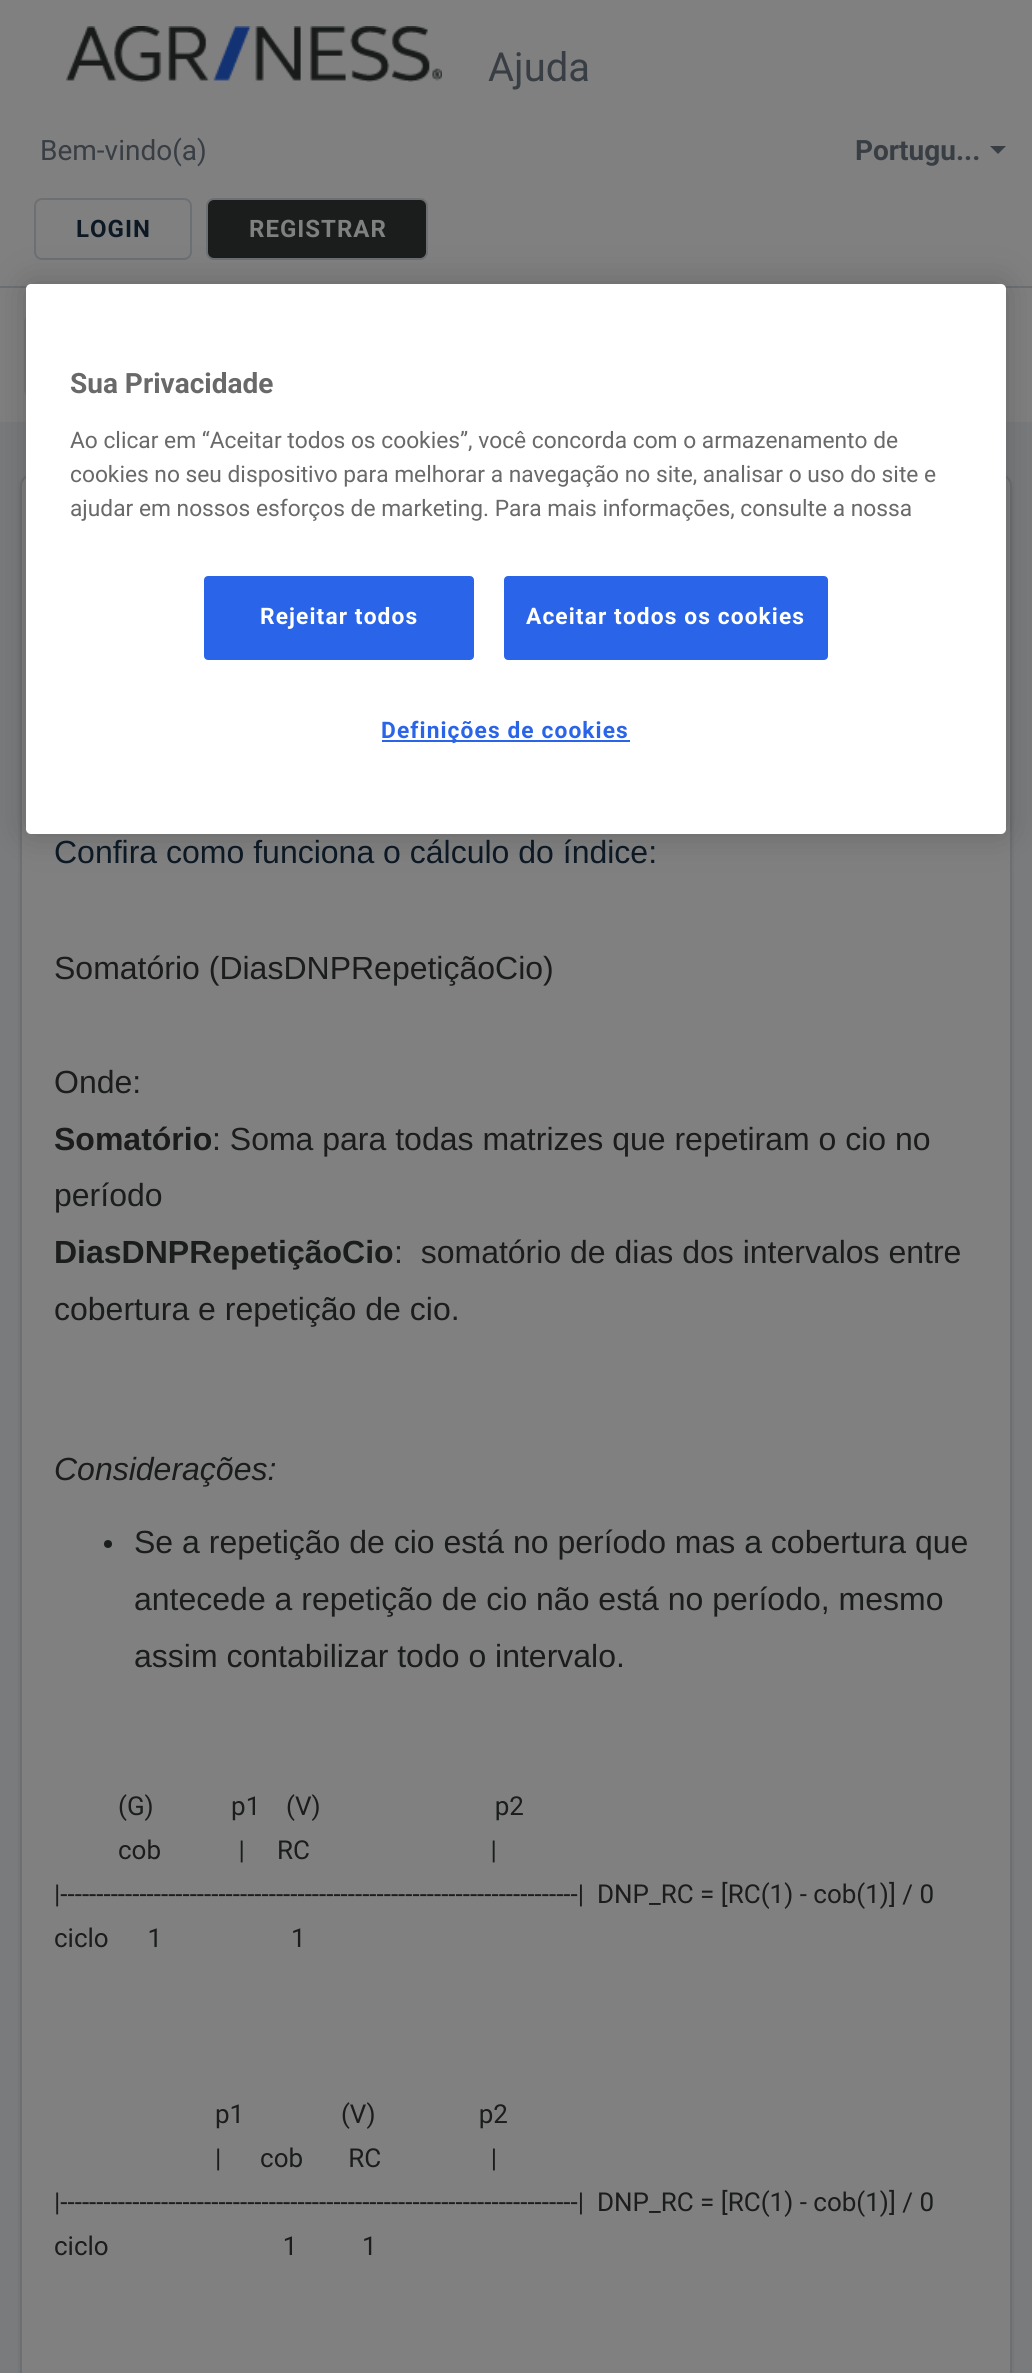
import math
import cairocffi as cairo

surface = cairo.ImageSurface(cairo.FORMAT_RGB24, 1032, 2373)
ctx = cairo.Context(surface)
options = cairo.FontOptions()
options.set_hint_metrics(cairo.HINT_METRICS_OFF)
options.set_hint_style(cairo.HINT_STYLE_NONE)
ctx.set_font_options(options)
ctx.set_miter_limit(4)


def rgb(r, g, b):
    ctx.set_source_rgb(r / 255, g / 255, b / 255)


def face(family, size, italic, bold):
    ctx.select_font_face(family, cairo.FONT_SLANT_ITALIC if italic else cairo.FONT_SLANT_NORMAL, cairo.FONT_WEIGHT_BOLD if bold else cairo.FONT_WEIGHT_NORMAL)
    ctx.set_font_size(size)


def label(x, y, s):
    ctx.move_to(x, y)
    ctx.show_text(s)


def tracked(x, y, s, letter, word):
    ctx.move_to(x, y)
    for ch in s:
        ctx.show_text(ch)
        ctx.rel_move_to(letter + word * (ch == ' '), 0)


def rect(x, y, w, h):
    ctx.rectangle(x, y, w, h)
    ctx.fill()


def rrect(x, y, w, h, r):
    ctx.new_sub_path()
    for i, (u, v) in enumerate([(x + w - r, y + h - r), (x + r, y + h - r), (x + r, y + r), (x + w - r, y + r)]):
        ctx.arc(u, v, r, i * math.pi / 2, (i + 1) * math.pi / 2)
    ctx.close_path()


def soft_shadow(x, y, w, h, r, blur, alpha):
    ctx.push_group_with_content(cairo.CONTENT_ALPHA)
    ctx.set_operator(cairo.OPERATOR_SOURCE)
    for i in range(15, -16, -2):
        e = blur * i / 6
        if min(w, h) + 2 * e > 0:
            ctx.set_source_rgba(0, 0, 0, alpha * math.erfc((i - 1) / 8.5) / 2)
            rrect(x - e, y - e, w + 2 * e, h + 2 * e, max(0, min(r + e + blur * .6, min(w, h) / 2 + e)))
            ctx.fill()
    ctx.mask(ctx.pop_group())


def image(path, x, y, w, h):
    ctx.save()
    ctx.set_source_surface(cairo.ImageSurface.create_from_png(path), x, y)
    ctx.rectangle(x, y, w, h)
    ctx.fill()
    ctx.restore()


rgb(122, 123, 124)
ctx.paint()
rgb(128, 128, 128)
rect(0, 0, 1032, 286)
rgb(109, 112, 114)
rect(0, 286, 1032, 2)
image('image0.png', 66, 26, 376, 56)
face('Roboto', 40, 0, 0)
rgb(56, 62, 68)
label(488, 81, 'Ajuda')
face('Roboto', 28, 0, 0)
label(40, 160, 'Bem-vindo(a)')
face('Roboto', 28, 0, 1)
label(855, 160, 'Portugu...')
ctx.new_path()
ctx.move_to(990, 146)
ctx.line_to(1006, 146)
ctx.line_to(998, 154)
ctx.close_path()
ctx.fill()
rrect(35, 199, 156, 60, 7)
rgb(109, 112, 114)
ctx.stroke()
face('Roboto', 24, 0, 1)
rgb(12, 25, 36)
tracked(76, 237, 'LOGIN', 1, 0)
rgb(27, 29, 29)
rrect(207, 199, 220, 60, 7)
ctx.fill_preserve()
rgb(109, 112, 114)
ctx.stroke()
rgb(128, 128, 128)
tracked(249, 237, 'REGISTRAR', 1, 0)
rect(0, 288, 1032, 134)
rrect(25, 315, 436, 82, 7)
rgb(118, 119, 120)
ctx.stroke()
rgb(32, 32, 34)
soft_shadow(20, 476, 992, 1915, 12, 2, 0.15)
rgb(128, 128, 128)
rrect(21, 475, 990, 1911, 11)
ctx.fill_preserve()
rgb(109, 112, 114)
ctx.stroke()
rgb(0, 0, 0)
soft_shadow(26, 284, 980, 550, 5, 18, 0.2)
rgb(255, 255, 255)
rrect(26, 284, 980, 550, 5)
ctx.fill()
face('Roboto', 28, 0, 1)
rgb(105, 105, 105)
label(70, 393, 'Sua Privacidade')
face('Roboto', 22.75, 0, 0)
label(70, 448, 'Ao clicar em “Aceitar todos os cookies”, você concorda com o armazenamento de')
label(70, 482, 'cookies no seu dispositivo para melhorar a navegação no site, analisar o uso do site e')
label(70, 516, 'ajudar em nossos esforços de marketing. Para mais informaçōes, consulte a nossa')
rgb(42, 100, 232)
rrect(205, 577, 268, 82, 3)
ctx.fill_preserve()
ctx.stroke()
face('Roboto', 22.75, 0, 1)
rgb(255, 255, 255)
tracked(260, 624, 'Rejeitar todos', 1.1, 0)
rgb(42, 100, 232)
rrect(505, 577, 322, 82, 3)
ctx.fill_preserve()
ctx.stroke()
rgb(255, 255, 255)
tracked(526, 624, 'Aceitar todos os cookies', 1.1, 0)
rgb(42, 100, 232)
rect(382, 740, 248, 2)
tracked(381, 738, 'Definições de cookies', 1.1, 0)
face('Liberation Sans', 32, 0, 0)
rgb(12, 25, 36)
label(54, 863, 'Confira como funciona o cálculo do índice:')
rgb(27, 29, 29)
label(54, 979, 'Somatório (DiasDNPRepetiçãoCio)')
label(54, 1093, 'Onde:')
face('Liberation Sans', 32, 0, 1)
label(54, 1150, 'Somatório')
face('Liberation Sans', 32, 0, 0)
label(212, 1150, ': Soma para todas matrizes que repetiram o cio no')
label(54, 1206, 'período')
face('Liberation Sans', 32, 0, 1)
label(54, 1263, 'DiasDNPRepetiçãoCio')
face('Liberation Sans', 32, 0, 0)
label(394, 1263, ':  somatório de dias dos intervalos entre')
label(54, 1320, 'cobertura e repetição de cio.')
face('Liberation Sans', 32, 1, 0)
label(54, 1480, 'Considerações:')
ctx.new_path()
ctx.arc(108, 1544, 4, 0, 2 * math.pi)
ctx.fill()
face('Liberation Sans', 32, 0, 0)
label(134, 1553, 'Se a repetição de cio está no período mas a cobertura que')
label(134, 1610, 'antecede a repetição de cio não está no período, mesmo')
label(134, 1667, 'assim contabilizar todo o intervalo.')
face('Roboto', 26, 0, 0)
label(118, 1815, '(G)            p1    (V)                           p2')
label(118, 1859, 'cob            |     RC                            |')
label(54, 1903, '|------------------------------------------------------------------------|  DNP_RC = [RC(1) - cob(1)] / 0')
label(54, 1947, 'ciclo      1                    1')
label(215, 2123, 'p1               (V)                p2')
label(215, 2167, '|      cob       RC                 |')
label(54, 2211, '|------------------------------------------------------------------------|  DNP_RC = [RC(1) - cob(1)] / 0')
label(54, 2255, 'ciclo                           1          1')
surface.write_to_png('render.png')
